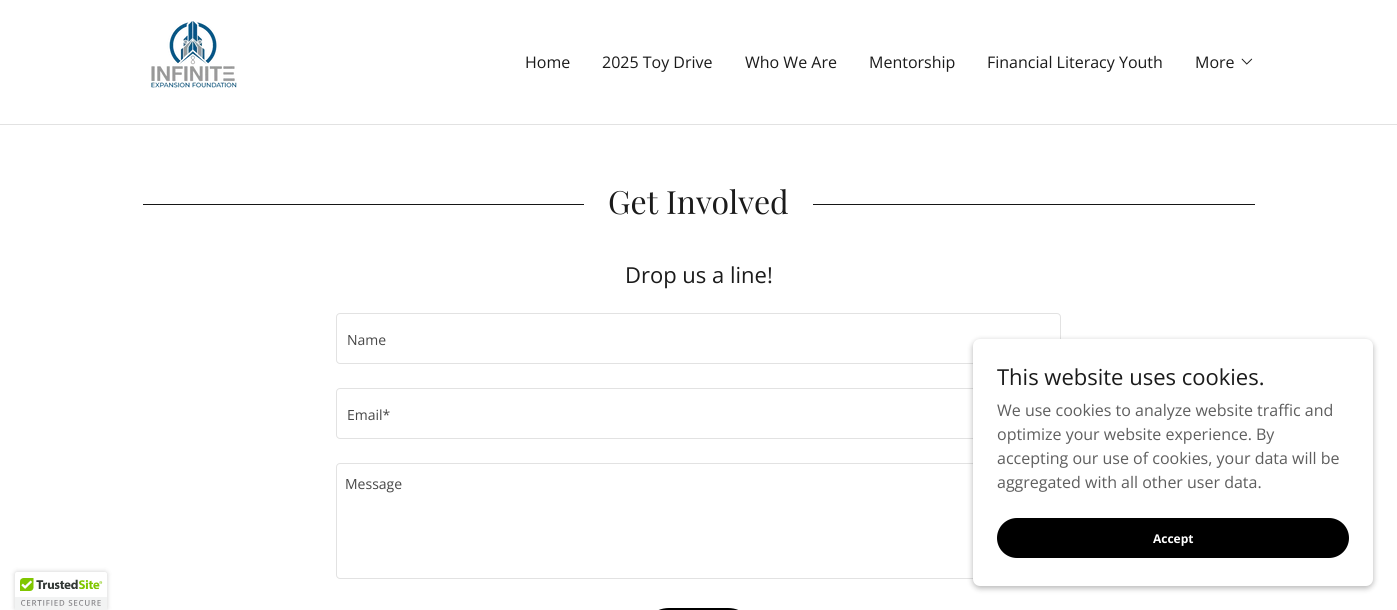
import math
import cairocffi as cairo

surface = cairo.ImageSurface(cairo.FORMAT_RGB24, 1397, 610)
ctx = cairo.Context(surface)
options = cairo.FontOptions()
options.set_hint_metrics(cairo.HINT_METRICS_OFF)
options.set_hint_style(cairo.HINT_STYLE_NONE)
ctx.set_font_options(options)
ctx.set_miter_limit(4)


def rgb(r, g, b):
    ctx.set_source_rgb(r / 255, g / 255, b / 255)


def face(family, size, italic, bold):
    ctx.select_font_face(family, cairo.FONT_SLANT_ITALIC if italic else cairo.FONT_SLANT_NORMAL, cairo.FONT_WEIGHT_BOLD if bold else cairo.FONT_WEIGHT_NORMAL)
    ctx.set_font_size(size)


def label(x, y, s):
    ctx.move_to(x, y)
    ctx.show_text(s)


def rect(x, y, w, h):
    ctx.rectangle(x, y, w, h)
    ctx.fill()


def rrect(x, y, w, h, r):
    ctx.new_sub_path()
    for i, (u, v) in enumerate([(x + w - r, y + h - r), (x + r, y + h - r), (x + r, y + r), (x + w - r, y + r)]):
        ctx.arc(u, v, r, i * math.pi / 2, (i + 1) * math.pi / 2)
    ctx.close_path()


def soft_shadow(x, y, w, h, r, blur, alpha):
    ctx.push_group_with_content(cairo.CONTENT_ALPHA)
    ctx.set_operator(cairo.OPERATOR_SOURCE)
    for i in range(15, -16, -2):
        e = blur * i / 6
        if min(w, h) + 2 * e > 0:
            ctx.set_source_rgba(0, 0, 0, alpha * math.erfc((i - 1) / 8.5) / 2)
            rrect(x - e, y - e, w + 2 * e, h + 2 * e, max(0, min(r + e + blur * .6, min(w, h) / 2 + e)))
            ctx.fill()
    ctx.mask(ctx.pop_group())


def image(path, x, y, w, h):
    ctx.save()
    ctx.set_source_surface(cairo.ImageSurface.create_from_png(path), x, y)
    ctx.rectangle(x, y, w, h)
    ctx.fill()
    ctx.restore()


rgb(255, 255, 255)
ctx.paint()
image('image0.png', 151, 21, 86, 67)
face('Open Sans', 16, 0, 0)
rgb(27, 27, 27)
label(525, 68, 'Home')
label(602, 68, '2025 Toy Drive')
label(745, 68, 'Who We Are')
label(869, 68, 'Mentorship')
label(987, 68, 'Financial Literacy Youth')
label(1195, 68, 'More')
image('image1.png', 1241, 58, 12, 7)
rgb(226, 226, 226)
rect(0, 124, 1397, 1)
rgb(22, 22, 22)
rect(143, 204, 441, 1)
face('Playfair Display', 32, 0, 0)
rgb(27, 27, 27)
label(608, 214, 'Get Involved')
rgb(22, 22, 22)
rect(813, 204, 442, 1)
face('Open Sans', 22, 0, 0)
rgb(27, 27, 27)
label(625, 283, 'Drop us a line!')
rrect(336.5, 313.5, 724, 50, 3.5)
rgb(226, 226, 226)
ctx.set_line_width(1)
ctx.stroke()
face('Open Sans', 14, 0, 0)
rgb(71, 71, 71)
label(347, 345, 'Name')
rrect(336.5, 388.5, 724, 50, 3.5)
rgb(226, 226, 226)
ctx.stroke()
rgb(71, 71, 71)
label(347, 420, 'Email*')
rrect(336.5, 463.5, 724, 115, 3.5)
rgb(226, 226, 226)
ctx.stroke()
rgb(71, 71, 71)
label(345, 489, 'Message')
rgb(0, 0, 0)
rrect(641, 608, 115, 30, 28)
ctx.fill()
rgb(0, 0, 0)
soft_shadow(973, 341, 400, 247, 7, 3, 0.3)
rgb(255, 255, 255)
rrect(973, 339, 400, 247, 7)
ctx.fill()
face('Open Sans', 22, 0, 0)
rgb(27, 27, 27)
label(997, 385, 'This website uses cookies.')
face('Open Sans', 16, 0, 0)
rgb(94, 94, 94)
label(997, 416, 'We use cookies to analyze website traffic and')
label(997, 440, 'optimize your website experience. By')
label(997, 464, 'accepting our use of cookies, your data will be')
label(997, 488, 'aggregated with all other user data.')
rgb(0, 0, 0)
rrect(997, 518, 352, 40, 20)
ctx.fill()
face('Open Sans', 12, 0, 1)
rgb(255, 255, 255)
label(1153, 543, 'Accept')
rgb(0, 0, 0)
soft_shadow(15, 572, 92, 38, 2, 2.5, 0.2)
rgb(255, 255, 255)
ctx.new_path()
ctx.move_to(17, 572)
ctx.line_to(105, 572)
ctx.curve_to(106, 572, 107, 573, 107, 574)
ctx.line_to(107, 610)
ctx.line_to(15, 610)
ctx.line_to(15, 574)
ctx.curve_to(15, 573, 16, 572, 17, 572)
ctx.close_path()
ctx.fill()
image('image2.png', 15, 578, 92, 32)
surface.write_to_png('render.png')
